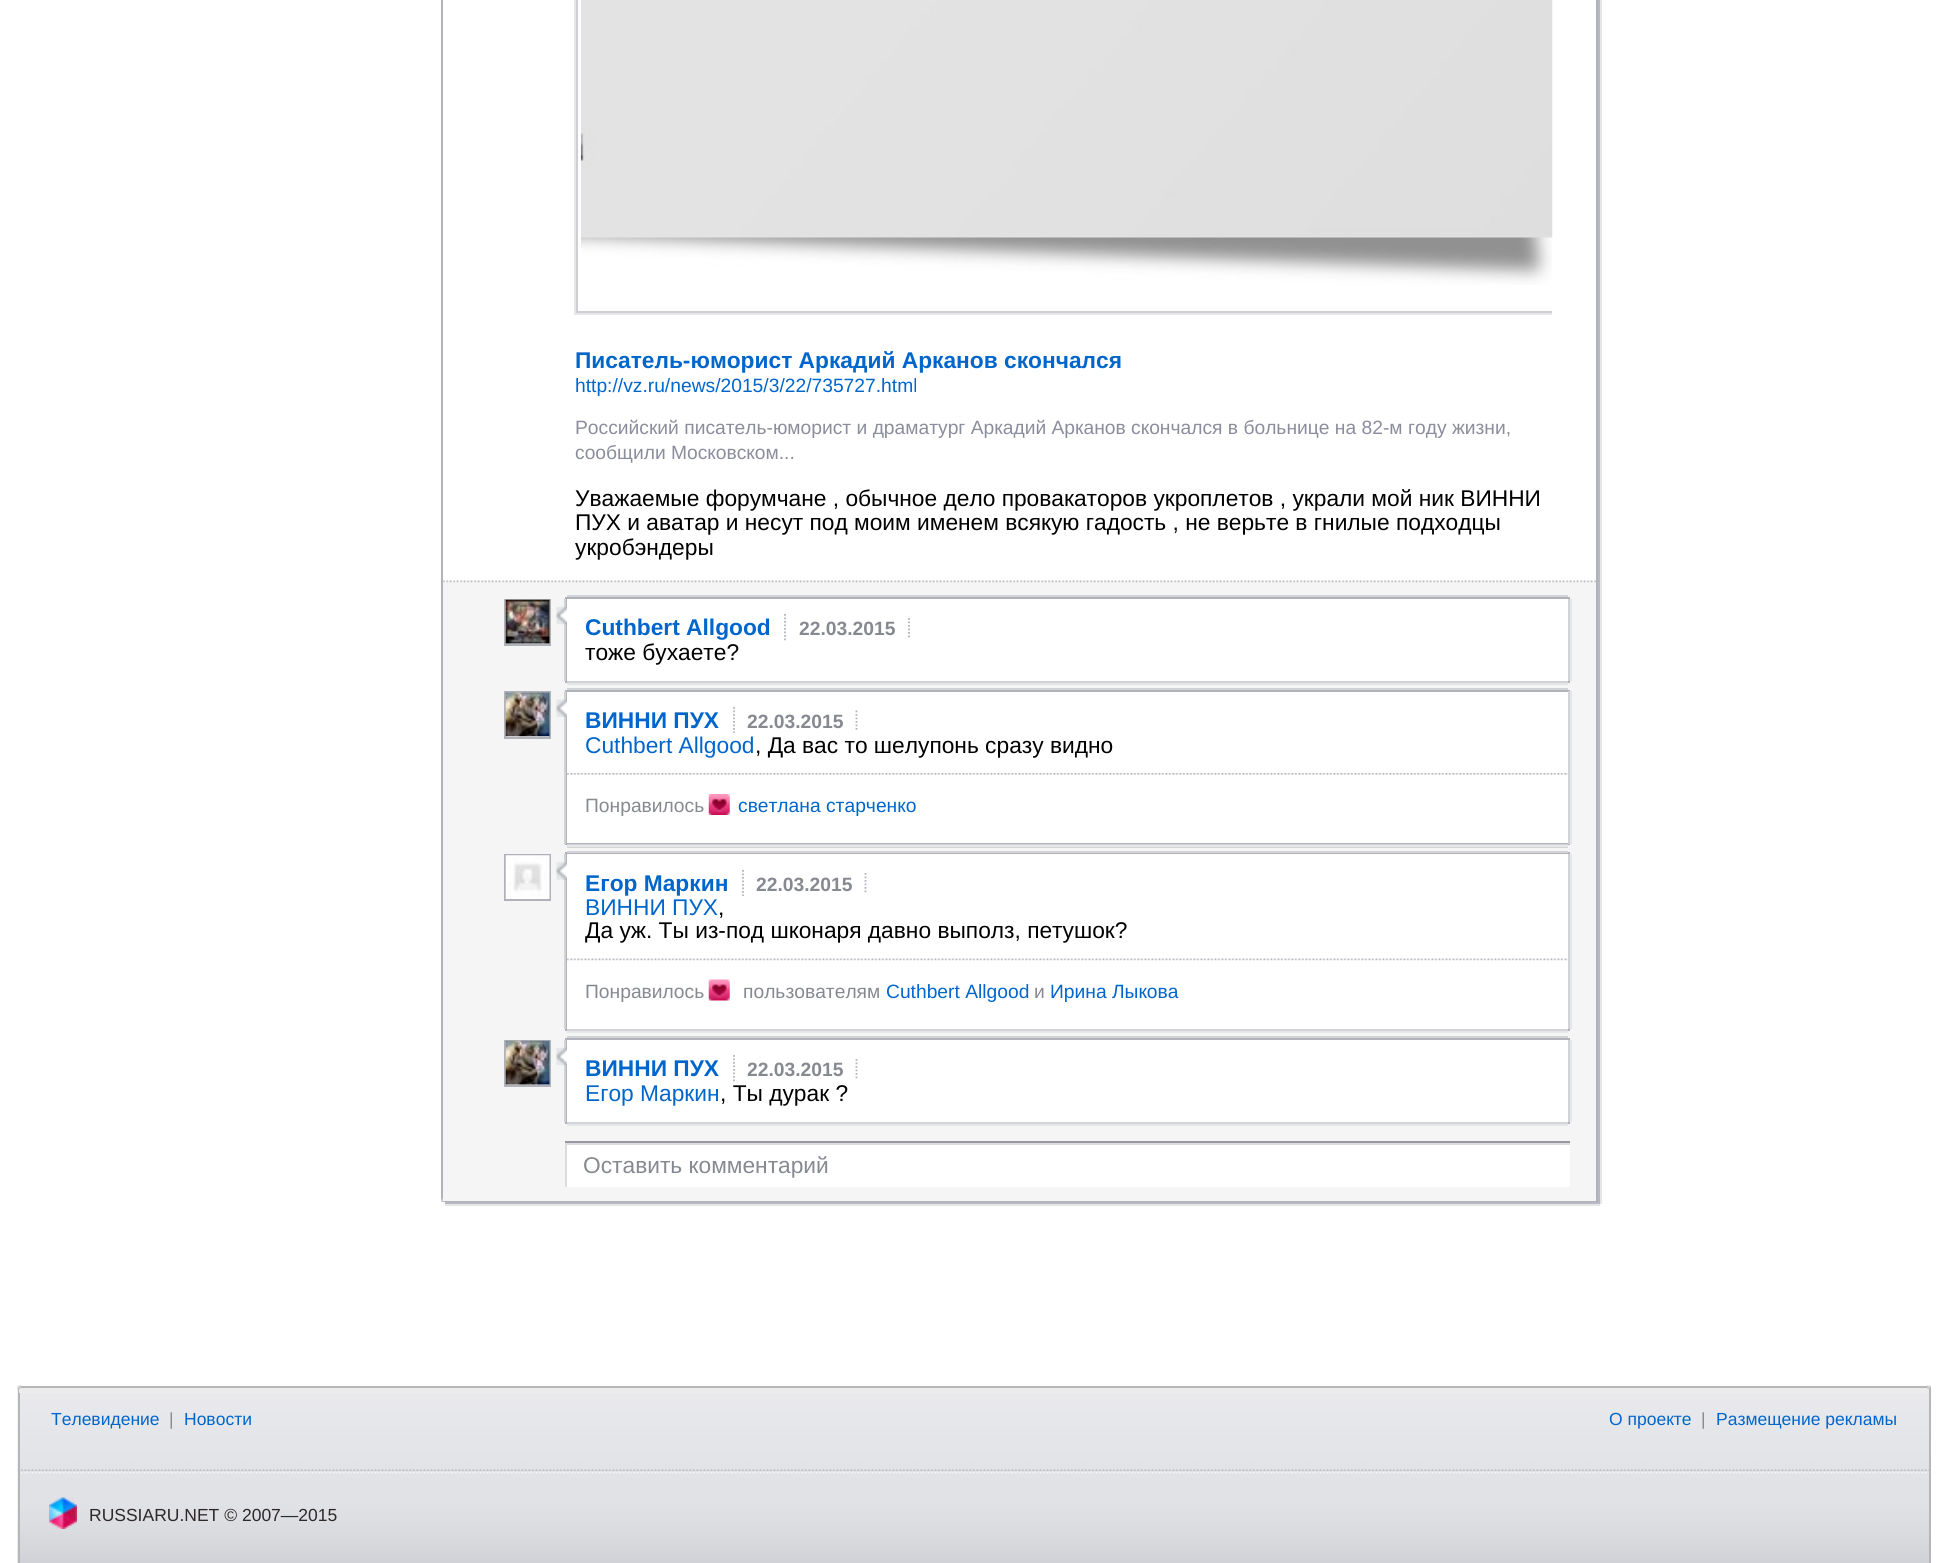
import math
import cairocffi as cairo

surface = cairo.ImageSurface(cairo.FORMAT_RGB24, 1947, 1563)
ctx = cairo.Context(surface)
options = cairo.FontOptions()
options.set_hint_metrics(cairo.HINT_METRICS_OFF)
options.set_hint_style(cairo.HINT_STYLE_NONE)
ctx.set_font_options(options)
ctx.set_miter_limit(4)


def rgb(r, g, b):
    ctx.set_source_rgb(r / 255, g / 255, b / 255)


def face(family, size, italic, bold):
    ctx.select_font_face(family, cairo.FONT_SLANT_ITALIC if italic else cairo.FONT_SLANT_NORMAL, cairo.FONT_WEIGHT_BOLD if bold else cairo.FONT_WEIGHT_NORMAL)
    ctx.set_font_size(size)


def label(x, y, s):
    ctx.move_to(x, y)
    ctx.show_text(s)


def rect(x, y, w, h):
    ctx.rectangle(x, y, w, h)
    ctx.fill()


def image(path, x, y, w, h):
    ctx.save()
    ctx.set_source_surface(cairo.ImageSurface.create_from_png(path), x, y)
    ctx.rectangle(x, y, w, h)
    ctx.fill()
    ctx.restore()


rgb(255, 255, 255)
ctx.paint()
ctx.rectangle(442, -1, 1155, 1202)
rgb(177, 178, 185)
ctx.stroke()
ctx.save()
ctx.rectangle(574, 0, 978, 574)
ctx.clip()
ctx.rectangle(577, -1, 1058, 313)
rgb(206, 206, 211)
ctx.stroke()
ctx.restore()
rgb(231, 231, 233)
rect(574, 0, 2, 313)
image('image0.png', 581, 0, 972, 285)
rect(574, 313, 978, 2)
face('Liberation Sans', 22.75, 0, 1)
rgb(0, 102, 204)
label(575, 368, 'Писатель-юморист Аркадий Арканов скончался')
face('Liberation Sans', 19.25, 0, 0)
label(575, 392, 'http://vz.ru/news/2015/3/22/735727.html')
rgb(139, 141, 157)
label(575, 434, 'Российский писатель-юморист и драматург Аркадий Арканов скончался в больнице на 82-м году жизни,')
label(575, 459, 'сообщили Московском...')
face('Liberation Sans', 22.75, 0, 0)
rgb(0, 0, 0)
label(575, 506, 'Уважаемые форумчане , обычное дело провакаторов укроплетов , украли мой ник ВИННИ')
label(575, 530, 'ПУХ и аватар и несут под моим именем всякую гадость , не верьте в гнилые подходцы')
label(575, 555, 'укробэндеры')
rgb(184, 184, 194)
rect(1598, 0, 2, 1204)
rgb(229, 230, 232)
rect(1600, 0, 2, 1204)
image('image13.png', 441, 1198, 4, 4)
image('image14.png', 1594, 1198, 4, 4)
rgb(245, 245, 245)
rect(443, 582, 1153, 619)
image('image1.png', 442, 580, 1154, 3)
rgb(255, 255, 255)
ctx.rectangle(566, 598, 1003, 84)
ctx.fill_preserve()
rgb(177, 178, 185)
ctx.stroke()
rgb(210, 211, 215)
rect(567, 595, 1001, 2)
ctx.rectangle(505, 600, 45, 45)
rgb(177, 178, 185)
ctx.stroke()
image('image2.png', 505, 599, 45, 45)
rgb(210, 211, 215)
rect(564, 599, 2, 82)
rect(1568, 599, 2, 82)
rgb(229, 230, 232)
rect(1570, 599, 2, 82)
image('image3.png', 556, 606, 11, 19)
face('Liberation Sans', 22.75, 0, 1)
rgb(0, 102, 204)
label(585, 635, 'Cuthbert Allgood')
ctx.new_path()
ctx.move_to(785, 614)
ctx.line_to(785, 640.5)
rgb(178, 180, 187)
ctx.set_line_width(1.8)
ctx.set_dash([1.75, 1.75])
ctx.stroke()
face('Liberation Sans', 19.25, 0, 1)
rgb(135, 137, 145)
label(799, 635, '22.03.2015')
ctx.new_path()
ctx.move_to(909, 618)
ctx.line_to(909, 639)
rgb(178, 180, 187)
ctx.stroke()
face('Liberation Sans', 22.75, 0, 0)
rgb(0, 0, 0)
label(585, 660, 'тоже бухаете?')
rgb(210, 211, 215)
rect(567, 681, 1001, 2)
rgb(229, 230, 232)
rect(567, 683, 1001, 2)
rgb(255, 255, 255)
ctx.rectangle(566, 691, 1003, 153)
ctx.fill_preserve()
rgb(177, 178, 185)
ctx.set_line_width(2)
ctx.set_dash([])
ctx.stroke()
rgb(210, 211, 215)
rect(567, 688, 1001, 2)
ctx.rectangle(505, 692, 45, 46)
rgb(177, 178, 185)
ctx.stroke()
image('image4.png', 505, 692, 45, 45)
rgb(210, 211, 215)
rect(564, 691, 2, 153)
rect(1568, 691, 2, 153)
rgb(229, 230, 232)
rect(1570, 691, 2, 153)
image('image5.png', 556, 699, 11, 18)
face('Liberation Sans', 22.75, 0, 1)
rgb(0, 102, 204)
label(585, 728, 'ВИННИ ПУХ')
ctx.new_path()
ctx.move_to(734, 707)
ctx.line_to(734, 733)
rgb(178, 180, 187)
ctx.set_line_width(1.8)
ctx.set_dash([1.75, 1.75])
ctx.stroke()
face('Liberation Sans', 19.25, 0, 1)
rgb(135, 137, 145)
label(747, 728, '22.03.2015')
ctx.new_path()
ctx.move_to(856.5, 710.5)
ctx.line_to(856.5, 731.5)
rgb(178, 180, 187)
ctx.stroke()
face('Liberation Sans', 22.75, 0, 0)
rgb(0, 102, 204)
label(585, 753, 'Cuthbert Allgood')
rgb(0, 0, 0)
label(755, 753, ', Да вас то шелупонь сразу видно')
image('image6.png', 567, 773, 1001, 2)
face('Liberation Sans', 19.25, 0, 0)
rgb(135, 137, 145)
label(585, 812, 'Понравилось')
image('image7.png', 708, 794, 22, 21)
rgb(0, 102, 204)
label(738, 812, 'светлана старченко')
rgb(210, 211, 215)
rect(567, 844, 1001, 4)
rgb(229, 230, 232)
rect(567, 845, 1001, 2)
rgb(255, 255, 255)
ctx.rectangle(566, 853, 1003, 177)
ctx.fill_preserve()
rgb(177, 178, 185)
ctx.set_line_width(2)
ctx.set_dash([])
ctx.stroke()
rgb(210, 211, 215)
rect(567, 851, 1001, 2)
ctx.rectangle(505, 855, 45, 45)
rgb(177, 178, 185)
ctx.stroke()
image('image8.png', 505, 855, 45, 44)
rgb(210, 211, 215)
rect(564, 854, 2, 175)
rect(1568, 854, 2, 175)
rgb(229, 230, 232)
rect(1570, 854, 2, 175)
image('image9.png', 556, 862, 11, 18)
face('Liberation Sans', 22.75, 0, 1)
rgb(0, 102, 204)
label(585, 891, 'Егор Маркин')
ctx.new_path()
ctx.move_to(743, 870)
ctx.line_to(743, 896)
rgb(178, 180, 187)
ctx.set_line_width(1.8)
ctx.set_dash([1.75, 1.75])
ctx.stroke()
face('Liberation Sans', 19.25, 0, 1)
rgb(135, 137, 145)
label(756, 891, '22.03.2015')
ctx.new_path()
ctx.move_to(865.5, 873)
ctx.line_to(865.5, 894)
rgb(178, 180, 187)
ctx.stroke()
face('Liberation Sans', 22.75, 0, 0)
rgb(0, 102, 204)
label(585, 915, 'ВИННИ ПУХ')
rgb(0, 0, 0)
label(718, 915, ',')
label(585, 938, 'Да уж. Ты из-под шконаря давно выполз, петушок?')
image('image10.png', 567, 958, 1001, 3)
face('Liberation Sans', 19.25, 0, 0)
rgb(135, 137, 145)
label(585, 998, 'Понравилось')
image('image11.png', 708, 979, 22, 22)
label(743, 998, 'пользователям')
rgb(0, 102, 204)
label(886, 998, 'Cuthbert Allgood')
rgb(135, 137, 145)
label(1034, 998, 'и')
rgb(0, 102, 204)
label(1050, 998, 'Ирина Лыкова')
rgb(210, 211, 215)
rect(567, 1029, 1001, 2)
rgb(229, 230, 232)
rect(567, 1031, 1001, 2)
rgb(255, 255, 255)
ctx.rectangle(566, 1039, 1003, 84)
ctx.fill_preserve()
rgb(177, 178, 185)
ctx.set_line_width(2)
ctx.set_dash([])
ctx.stroke()
rgb(210, 211, 215)
rect(567, 1036, 1001, 2)
ctx.rectangle(505, 1041, 45, 45)
rgb(177, 178, 185)
ctx.stroke()
image('image12.png', 505, 1040, 45, 45)
rgb(210, 211, 215)
rect(564, 1040, 2, 82)
rect(1568, 1040, 2, 82)
rgb(229, 230, 232)
rect(1570, 1040, 2, 82)
image('image3.png', 556, 1047, 11, 19)
face('Liberation Sans', 22.75, 0, 1)
rgb(0, 102, 204)
label(585, 1076, 'ВИННИ ПУХ')
ctx.new_path()
ctx.move_to(734, 1055)
ctx.line_to(734, 1081.5)
rgb(178, 180, 187)
ctx.set_line_width(1.8)
ctx.set_dash([1.75, 1.75])
ctx.stroke()
face('Liberation Sans', 19.25, 0, 1)
rgb(135, 137, 145)
label(747, 1076, '22.03.2015')
ctx.new_path()
ctx.move_to(856.5, 1059)
ctx.line_to(856.5, 1080)
rgb(178, 180, 187)
ctx.stroke()
face('Liberation Sans', 22.75, 0, 0)
rgb(0, 102, 204)
label(585, 1101, 'Егор Маркин')
rgb(0, 0, 0)
label(720, 1101, ', Ты дурак ?')
rgb(210, 211, 215)
rect(567, 1122, 1001, 2)
rgb(229, 230, 232)
rect(567, 1124, 1001, 2)
rgb(150, 151, 161)
rect(565, 1141, 1005, 2)
rgb(255, 255, 255)
rect(567, 1145, 1003, 42)
rgb(220, 220, 223)
rect(565, 1143, 1005, 2)
rect(565, 1143, 2, 44)
rgb(135, 137, 145)
label(583, 1173, 'Оставить комментарий')
rgb(184, 184, 194)
rect(445, 1202, 1155, 2)
rgb(229, 230, 232)
rect(445, 1204, 1155, 2)
image('image15.png', 17, 1387, 1912, 176)
rgb(181, 182, 184)
rect(18, 1386, 1912, 2)
rect(1929, 1386, 2, 177)
rect(18, 1386, 2, 177)
rgb(236, 236, 236)
rect(19, 1388, 1910, 5)
image('image16.png', 17, 1385, 4, 4)
image('image17.png', 1926, 1385, 5, 4)
face('Liberation Sans', 17.5, 0, 0)
rgb(0, 102, 204)
label(51, 1425, 'Телевидение')
rgb(137, 137, 137)
label(169, 1425, '|')
rgb(0, 102, 204)
label(184, 1425, 'Новости')
label(1609, 1425, 'О проекте')
rgb(137, 137, 137)
label(1701, 1425, '|')
rgb(0, 102, 204)
label(1716, 1425, 'Размещение рекламы')
image('image18.png', 49, 1497, 28, 32)
rgb(46, 41, 41)
label(89, 1521, 'RUSSIARU.NET © 2007—2015')
surface.write_to_png('render.png')
